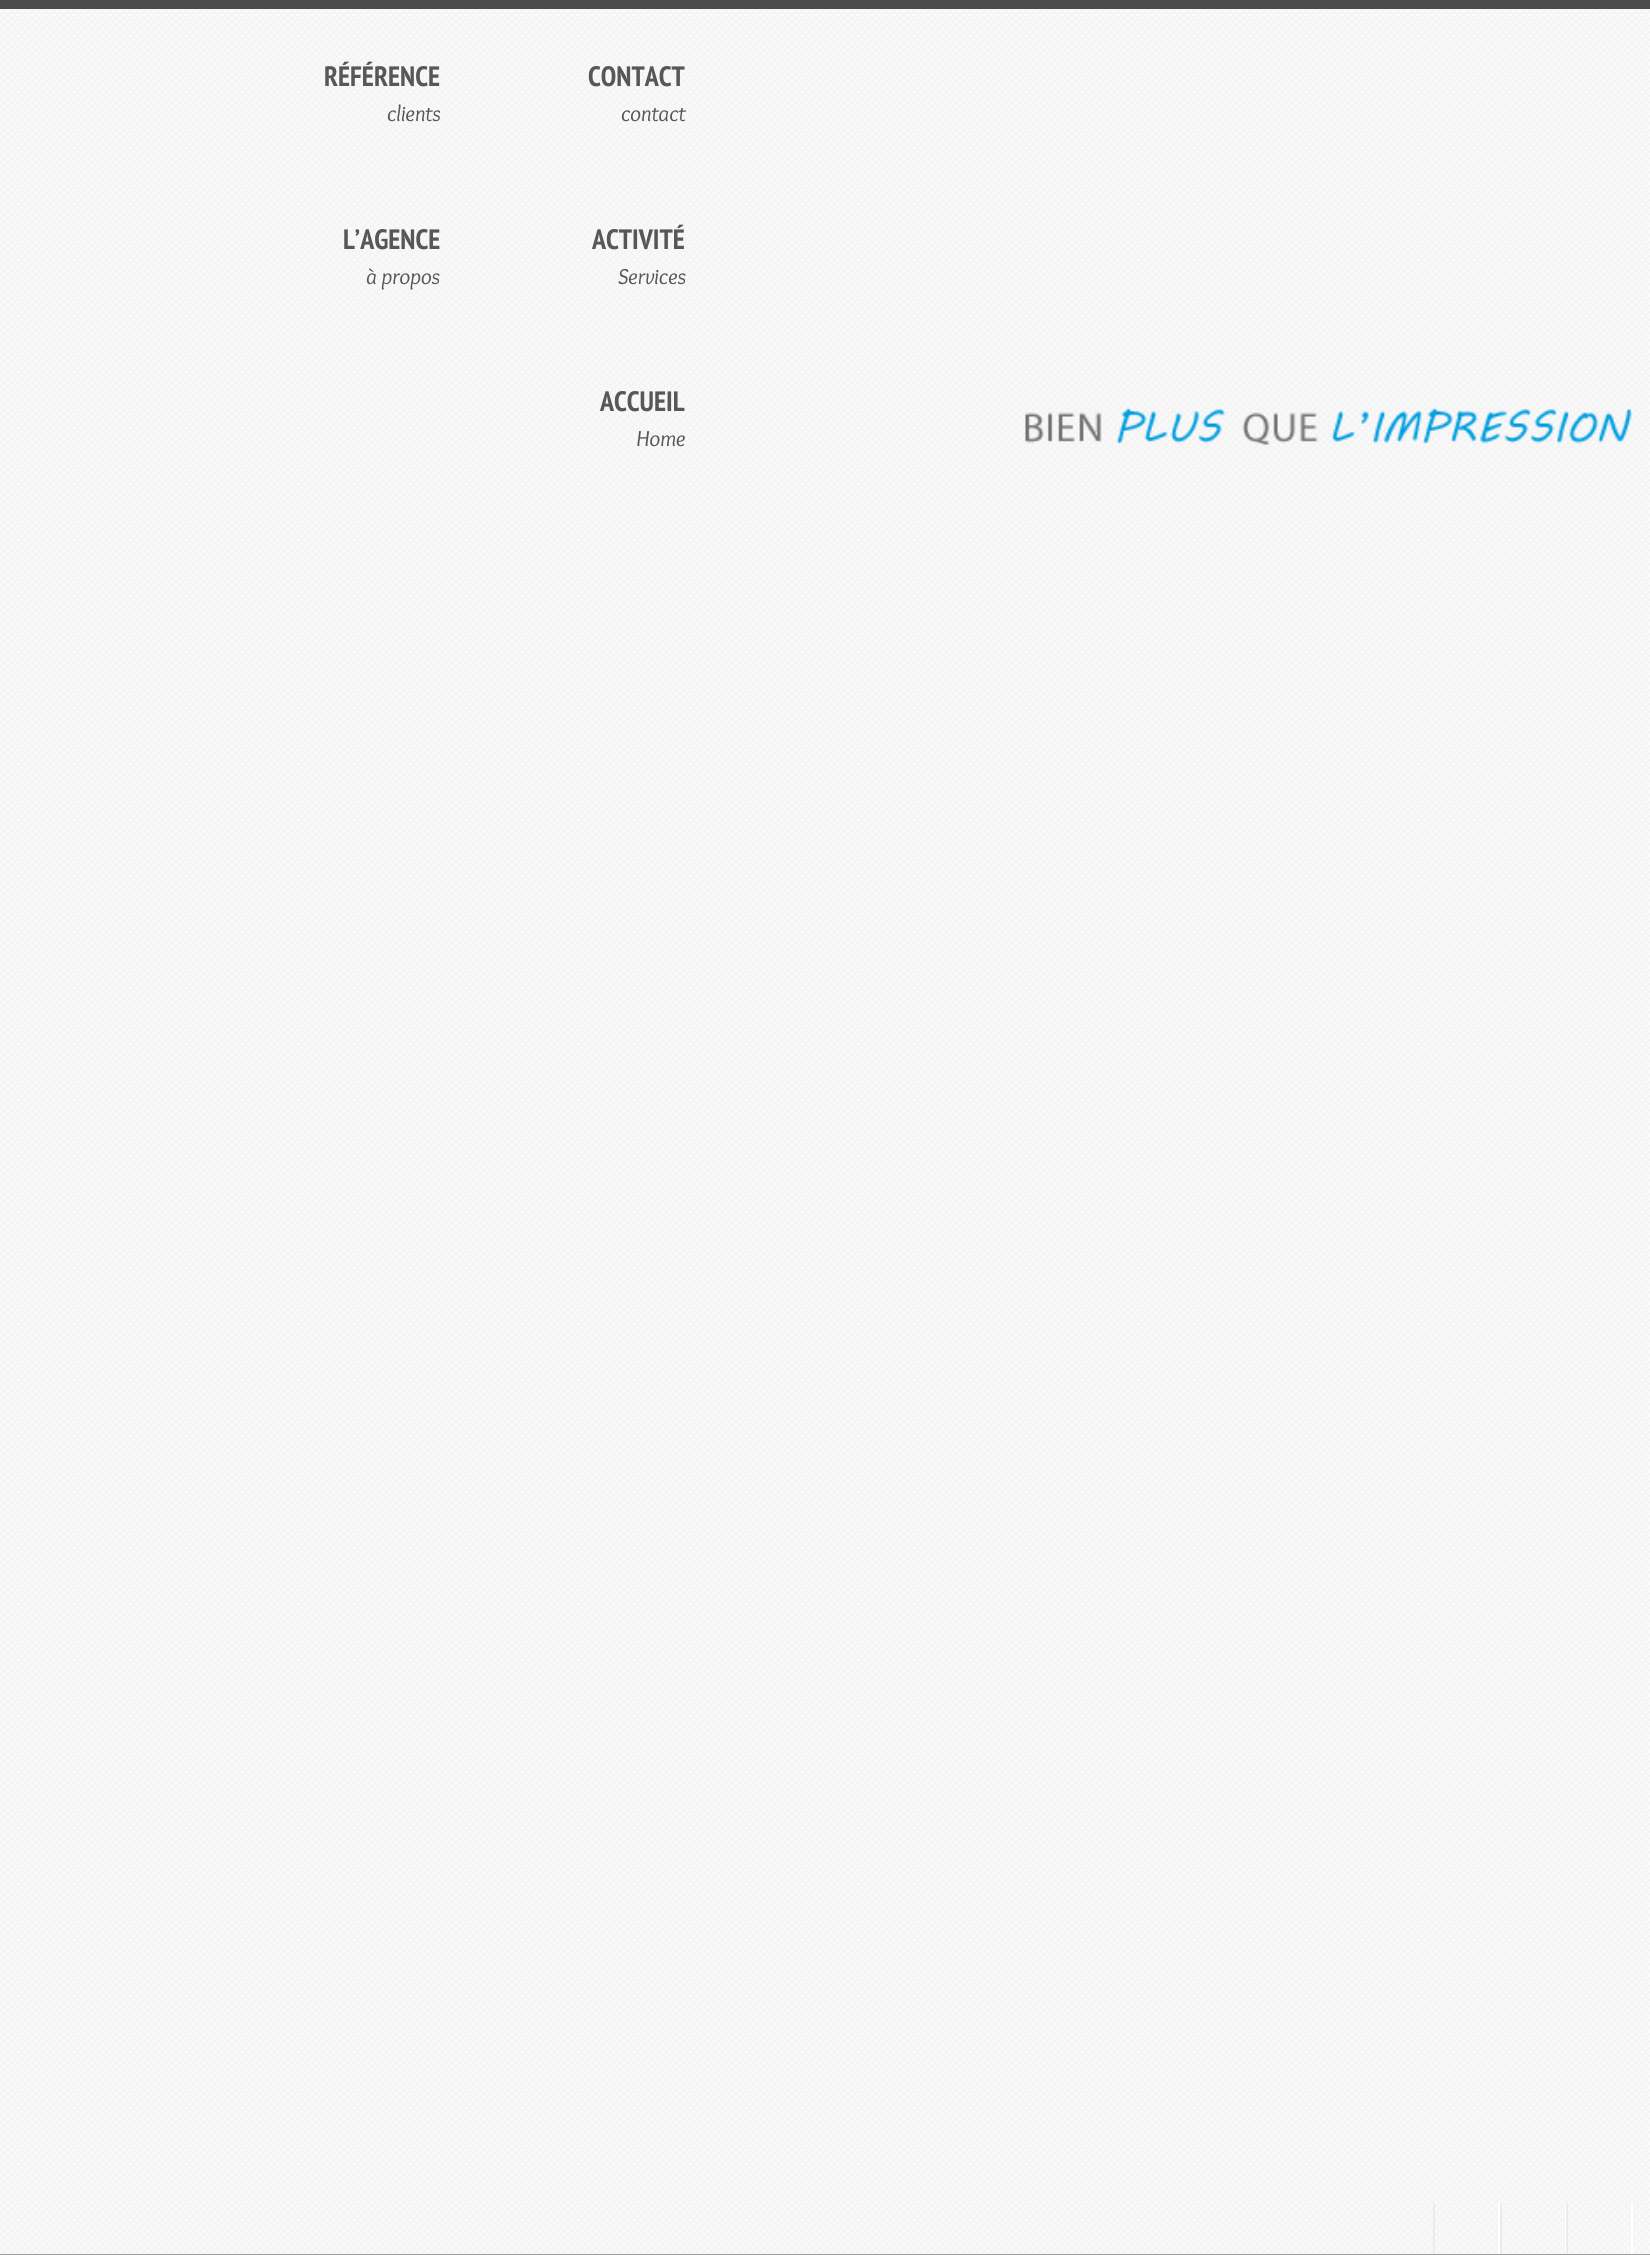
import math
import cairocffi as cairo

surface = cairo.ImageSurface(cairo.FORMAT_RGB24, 1650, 2255)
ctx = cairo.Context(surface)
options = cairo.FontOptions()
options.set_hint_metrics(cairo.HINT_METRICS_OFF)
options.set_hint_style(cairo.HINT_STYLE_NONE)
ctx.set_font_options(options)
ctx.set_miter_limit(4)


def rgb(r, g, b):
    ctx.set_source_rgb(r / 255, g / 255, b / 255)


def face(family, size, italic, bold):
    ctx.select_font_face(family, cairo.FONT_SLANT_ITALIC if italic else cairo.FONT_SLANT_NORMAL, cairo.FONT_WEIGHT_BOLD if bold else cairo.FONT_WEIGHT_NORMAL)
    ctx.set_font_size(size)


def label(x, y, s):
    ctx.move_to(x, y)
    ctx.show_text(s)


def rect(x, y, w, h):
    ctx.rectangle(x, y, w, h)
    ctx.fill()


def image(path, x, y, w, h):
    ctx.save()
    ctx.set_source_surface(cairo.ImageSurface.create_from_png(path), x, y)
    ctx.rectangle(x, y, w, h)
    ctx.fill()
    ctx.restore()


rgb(250, 250, 250)
ctx.paint()
image('image0.png', 0, 9, 1650, 2245)
rgb(75, 75, 75)
rect(0, 0, 1650, 9)
face('PT Sans Narrow', 28, 0, 1)
rgb(87, 87, 87)
label(324, 86, 'RÉFÉRENCE')
face('Overlock', 22.5, 1, 0)
label(387, 121, 'clients')
face('PT Sans Narrow', 28, 0, 1)
label(588, 86, 'CONTACT')
face('Overlock', 22.5, 1, 0)
label(621, 121, 'contact')
face('PT Sans Narrow', 28, 0, 1)
label(343, 249, 'L’AGENCE')
face('Overlock', 22.5, 1, 0)
label(366, 284, 'à propos')
face('PT Sans Narrow', 28, 0, 1)
label(592, 249, 'ACTIVITÉ')
face('Overlock', 22.5, 1, 0)
label(618, 284, 'Services')
face('PT Sans Narrow', 28, 0, 1)
label(600, 411, 'ACCUEIL')
face('Overlock', 22.5, 1, 0)
label(636, 446, 'Home')
image('image1.png', 1025, 407, 607, 39)
rgb(158, 158, 158)
rect(0, 2254, 1650, 1)
rgb(255, 255, 255)
rect(1498, 2203, 2, 51)
rgb(235, 235, 235)
rect(1433, 2203, 2, 51)
rgb(255, 255, 255)
rect(1565, 2203, 1, 51)
rgb(235, 235, 235)
rect(1500, 2203, 2, 51)
rgb(255, 255, 255)
rect(1631, 2203, 2, 51)
rgb(235, 235, 235)
rect(1566, 2203, 2, 51)
surface.write_to_png('render.png')
